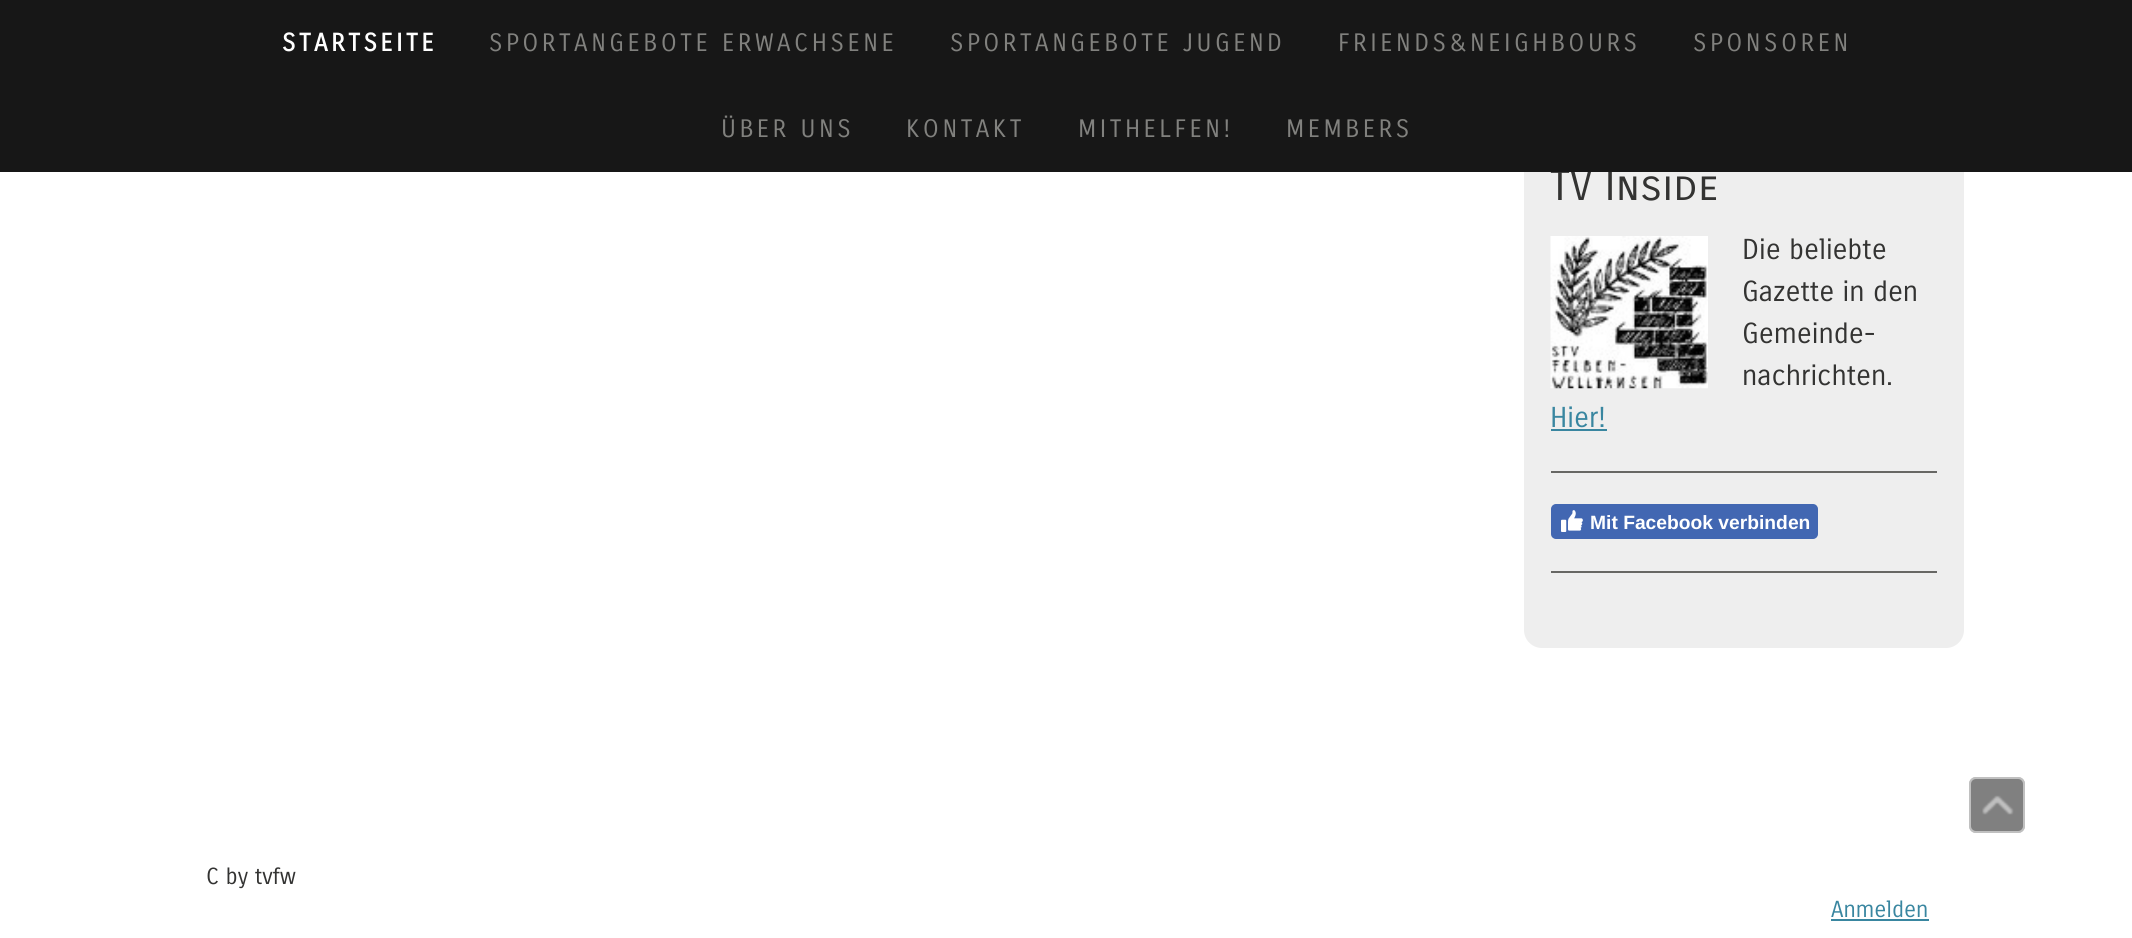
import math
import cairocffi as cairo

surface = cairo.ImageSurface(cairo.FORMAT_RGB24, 2132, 938)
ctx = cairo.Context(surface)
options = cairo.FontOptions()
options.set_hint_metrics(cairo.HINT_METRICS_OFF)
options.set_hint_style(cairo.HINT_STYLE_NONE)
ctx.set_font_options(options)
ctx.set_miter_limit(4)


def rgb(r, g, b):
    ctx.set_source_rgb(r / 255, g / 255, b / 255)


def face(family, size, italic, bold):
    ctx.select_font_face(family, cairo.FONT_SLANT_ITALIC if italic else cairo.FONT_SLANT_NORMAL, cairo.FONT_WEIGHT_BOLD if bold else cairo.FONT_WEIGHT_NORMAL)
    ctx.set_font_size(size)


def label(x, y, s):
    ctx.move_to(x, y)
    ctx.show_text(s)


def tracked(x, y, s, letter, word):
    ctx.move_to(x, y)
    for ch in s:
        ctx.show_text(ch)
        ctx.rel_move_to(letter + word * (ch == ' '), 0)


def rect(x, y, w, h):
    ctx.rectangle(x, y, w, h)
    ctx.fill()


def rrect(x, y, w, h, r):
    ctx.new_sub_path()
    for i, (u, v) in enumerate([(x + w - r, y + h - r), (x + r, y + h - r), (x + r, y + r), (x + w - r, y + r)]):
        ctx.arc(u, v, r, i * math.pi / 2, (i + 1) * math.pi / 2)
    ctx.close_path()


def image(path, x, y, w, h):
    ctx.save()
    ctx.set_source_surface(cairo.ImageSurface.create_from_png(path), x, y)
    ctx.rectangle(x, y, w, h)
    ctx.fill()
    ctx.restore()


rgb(255, 255, 255)
ctx.paint()
rgb(238, 238, 238)
rrect(1524, -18, 440, 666, 18)
ctx.fill()
face('Carrois Gothic SC', 42, 0, 0)
rgb(51, 51, 50)
label(1550, 200, 'TV Inside')
rgb(23, 23, 23)
rect(0, 0, 2132, 172)
face('Carrois Gothic', 24.5, 0, 1)
rgb(255, 255, 255)
tracked(282, 51, 'STARTSEITE', 3.5, 0)
face('Carrois Gothic', 24.5, 0, 0)
rgb(129, 129, 126)
tracked(489, 51, 'SPORTANGEBOTE ERWACHSENE', 3.5, 0)
tracked(950, 51, 'SPORTANGEBOTE JUGEND', 3.5, 0)
tracked(1338, 51, 'FRIENDS&NEIGHBOURS', 3.5, 0)
tracked(1693, 51, 'SPONSOREN', 3.5, 0)
tracked(721, 137, 'ÜBER UNS', 3.5, 0)
tracked(906, 137, 'KONTAKT', 3.5, 0)
tracked(1078, 137, 'MITHELFEN!', 3.5, 0)
tracked(1286, 137, 'MEMBERS', 3.5, 0)
image('image0.png', 1550, 236, 158, 153)
face('Carrois Gothic', 28, 0, 0)
rgb(51, 51, 50)
label(1742, 259, 'Die beliebte')
label(1742, 301, 'Gazette in den')
label(1742, 343, 'Gemeinde-')
label(1742, 385, 'nachrichten.')
rgb(57, 134, 160)
label(1550, 427, 'Hier!')
rect(1551, 429, 56, 2)
rgb(103, 103, 100)
rect(1551, 471, 386, 2)
rgb(66, 103, 178)
rrect(1552, 505, 265, 33, 4)
ctx.fill_preserve()
ctx.stroke()
image('image1.png', 1561, 510, 22, 22)
face('Liberation Sans', 19.25, 0, 1)
rgb(255, 255, 255)
label(1590, 529, 'Mit Facebook verbinden')
rgb(103, 103, 100)
rect(1551, 571, 386, 2)
face('Carrois Gothic', 22.5, 0, 0)
rgb(51, 51, 50)
label(206, 884, 'C by tvfw')
rgb(57, 134, 160)
label(1831, 917, 'Anmelden')
rect(1831, 919, 98, 2)
rgb(128, 128, 128)
rrect(1969, 777, 56, 56, 7)
ctx.fill()
rrect(1970, 778, 54, 54, 6)
ctx.set_source_rgba(1, 1, 1, 0.5)
ctx.stroke()
image('image2.png', 1982, 795, 32, 20)
surface.write_to_png('render.png')
